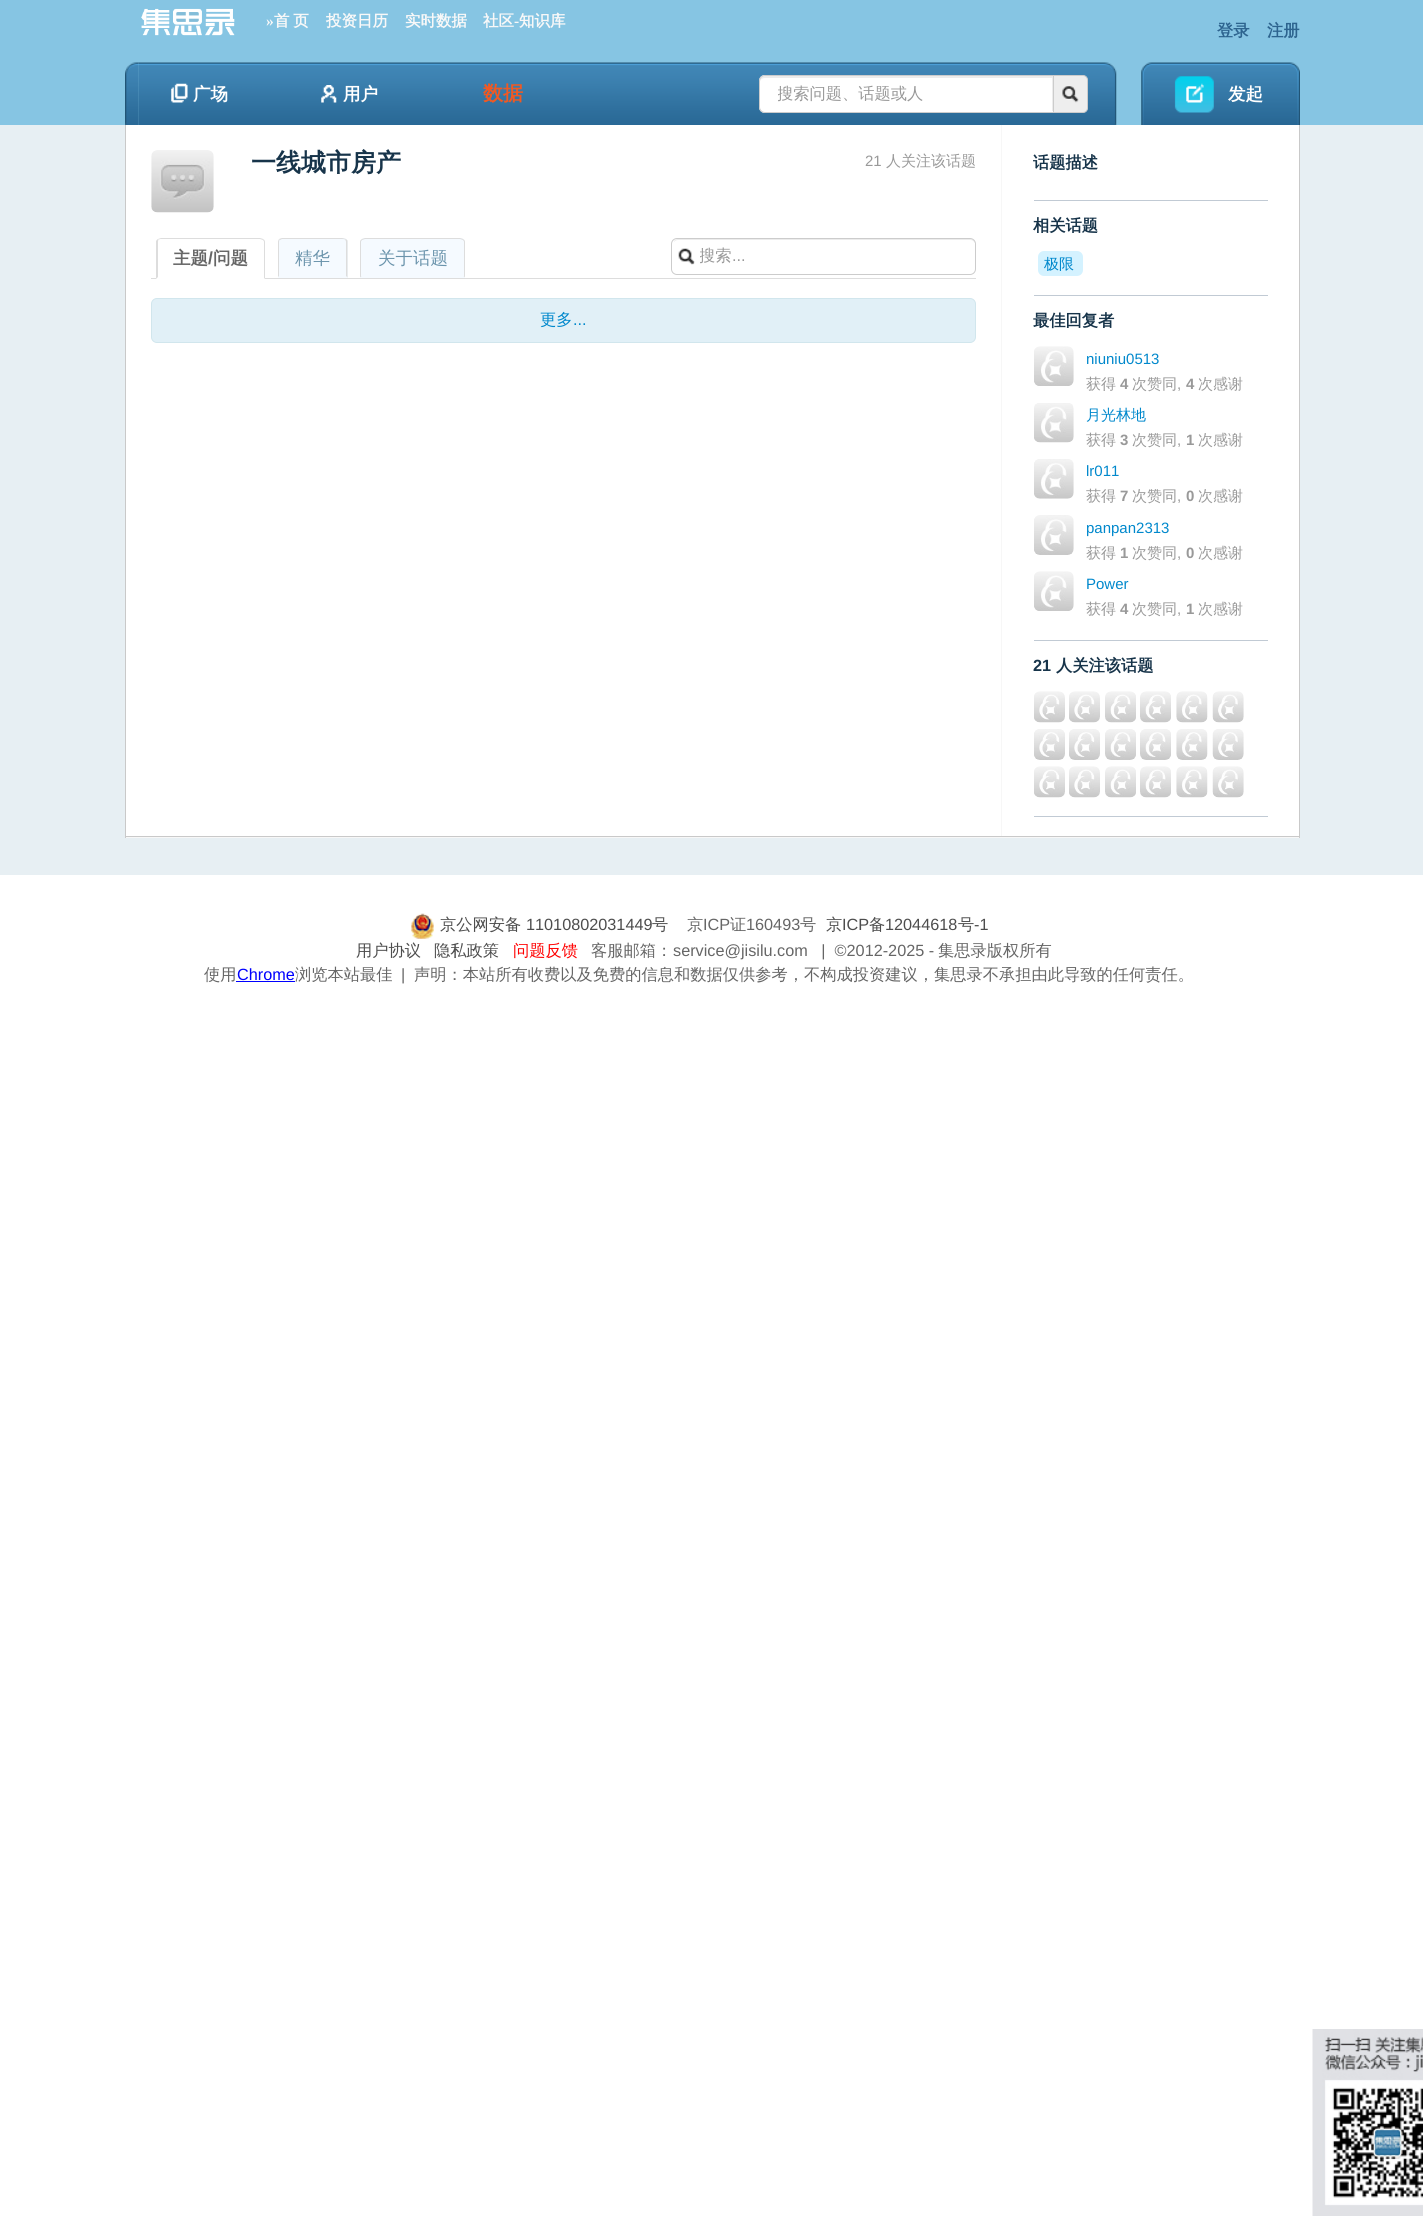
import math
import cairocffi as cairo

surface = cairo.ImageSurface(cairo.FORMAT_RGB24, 1423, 2228)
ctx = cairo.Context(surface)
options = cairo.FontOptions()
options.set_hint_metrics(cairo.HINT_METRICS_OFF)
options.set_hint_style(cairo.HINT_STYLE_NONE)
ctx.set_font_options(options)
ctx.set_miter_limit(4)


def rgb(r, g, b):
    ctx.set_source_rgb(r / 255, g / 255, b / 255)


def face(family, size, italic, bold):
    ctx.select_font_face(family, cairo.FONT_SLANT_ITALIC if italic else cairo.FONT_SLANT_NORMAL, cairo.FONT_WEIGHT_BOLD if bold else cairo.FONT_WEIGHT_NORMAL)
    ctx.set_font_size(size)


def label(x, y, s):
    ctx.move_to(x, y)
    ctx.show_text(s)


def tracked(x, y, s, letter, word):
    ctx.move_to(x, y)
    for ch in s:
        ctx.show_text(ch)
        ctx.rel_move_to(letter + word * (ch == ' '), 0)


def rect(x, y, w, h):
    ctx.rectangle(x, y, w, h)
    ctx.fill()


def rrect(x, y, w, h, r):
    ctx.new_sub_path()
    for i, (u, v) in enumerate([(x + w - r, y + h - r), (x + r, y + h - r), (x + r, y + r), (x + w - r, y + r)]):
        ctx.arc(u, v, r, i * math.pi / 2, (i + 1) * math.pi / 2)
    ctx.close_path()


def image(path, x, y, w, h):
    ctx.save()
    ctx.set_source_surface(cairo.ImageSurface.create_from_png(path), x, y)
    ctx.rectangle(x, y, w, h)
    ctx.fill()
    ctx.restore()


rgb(255, 255, 255)
ctx.paint()
rgb(134, 197, 227)
rect(0, 0, 1423, 125)
image('image0.png', 141, 8, 94, 28)
face('Liberation Serif', 15.5, 0, 1)
rgb(248, 248, 248)
label(266, 26, '»')
face('WenQuanYi Zen Hei', 15.5, 0, 1)
tracked(274, 26, '首 页', 0, -1)
label(326, 26, '投资日历')
label(405, 26, '实时数据')
label(483, 26, '社区')
face('Liberation Serif', 15.5, 0, 1)
label(514, 26, '-')
face('WenQuanYi Zen Hei', 15.5, 0, 1)
label(519, 26, '知识库')
face('WenQuanYi Zen Hei', 16.25, 0, 1)
rgb(45, 100, 143)
label(1217, 36, '登录')
label(1267, 36, '注册')
image('image1.png', 125, 62, 14, 63)
image('image2.png', 138, 62, 962, 63)
image('image3.png', 171, 83, 17, 20)
face('WenQuanYi Zen Hei', 17.5, 0, 1)
rgb(255, 255, 255)
label(193, 100, '广场')
image('image4.png', 321, 85, 16, 18)
label(343, 100, '用户')
face('WenQuanYi Zen Hei', 20, 0, 1)
rgb(241, 89, 34)
label(483, 100, '数据')
rgb(238, 238, 238)
ctx.new_path()
ctx.move_to(1053.5, 75.5)
ctx.line_to(1083, 75.5)
ctx.curve_to(1085.5, 75.5, 1087.5, 77.5, 1087.5, 80)
ctx.line_to(1087.5, 108)
ctx.curve_to(1087.5, 110.5, 1085.5, 112.5, 1083, 112.5)
ctx.line_to(1053.5, 112.5)
ctx.close_path()
ctx.fill_preserve()
rgb(204, 204, 204)
ctx.set_line_width(1)
ctx.stroke()
rgb(255, 255, 255)
ctx.new_path()
ctx.move_to(765, 75)
ctx.line_to(1054, 75)
ctx.line_to(1054, 113)
ctx.line_to(765, 113)
ctx.curve_to(761.5, 113, 759, 110.5, 759, 107)
ctx.line_to(759, 81)
ctx.curve_to(759, 77.5, 761.5, 75, 765, 75)
ctx.close_path()
ctx.fill()
rgb(236, 236, 236)
ctx.new_path()
ctx.move_to(765, 78)
ctx.line_to(1052, 78)
ctx.line_to(1052, 111)
ctx.line_to(1053, 111)
ctx.line_to(1053, 76)
ctx.line_to(765, 76)
ctx.curve_to(762, 76, 760, 78, 760, 81)
ctx.line_to(760, 82)
ctx.curve_to(760, 80, 762, 78, 765, 78)
ctx.close_path()
ctx.fill()
ctx.new_path()
ctx.move_to(765, 75.5)
ctx.line_to(1053.5, 75.5)
ctx.line_to(1053.5, 112.5)
ctx.line_to(765, 112.5)
ctx.curve_to(762, 112.5, 759.5, 110, 759.5, 107)
ctx.line_to(759.5, 81)
ctx.curve_to(759.5, 78, 762, 75.5, 765, 75.5)
ctx.close_path()
rgb(204, 204, 204)
ctx.stroke()
ctx.save()
ctx.rectangle(778, 83, 257, 22)
ctx.clip()
face('WenQuanYi Zen Hei Medium', 16.25, 0, 0)
rgb(153, 153, 153)
label(777, 99, '搜索问题、话题或人')
ctx.restore()
image('image5.png', 1062, 86, 17, 17)
image('image6.png', 1100, 62, 17, 63)
image('image7.png', 1141, 62, 159, 63)
face('WenQuanYi Zen Hei', 17.5, 0, 1)
rgb(255, 255, 255)
label(1228, 100, '发起')
rgb(231, 239, 243)
rect(0, 125, 1423, 750)
rgb(247, 247, 247)
rect(126, 837, 1173, 1)
rgb(201, 201, 201)
rect(1299, 125, 1, 713)
rect(125, 836, 1175, 1)
rect(125, 125, 1, 713)
rgb(255, 255, 255)
rect(126, 125, 1173, 711)
rgb(247, 247, 247)
rect(1001, 125, 1, 711)
image('image8.png', 151, 150, 63, 63)
face('WenQuanYi Zen Hei', 25, 0, 1)
rgb(23, 52, 74)
label(251, 171, '一线城市房产')
face('Liberation Sans', 15, 0, 0)
rgb(153, 153, 153)
label(865, 166, '21')
face('WenQuanYi Zen Hei Medium', 15, 0, 0)
label(886, 166, '人关注该话题')
rgb(221, 221, 221)
rect(151, 278, 825, 1)
rgb(255, 255, 255)
ctx.new_path()
ctx.move_to(161, 238)
ctx.line_to(260, 238)
ctx.curve_to(263, 238, 265, 240, 265, 243)
ctx.line_to(265, 279)
ctx.line_to(156, 279)
ctx.line_to(156, 243)
ctx.curve_to(156, 240, 158, 238, 161, 238)
ctx.close_path()
ctx.fill()
rgb(221, 221, 221)
ctx.new_path()
ctx.move_to(161, 238)
ctx.line_to(158, 239)
ctx.line_to(159, 240)
ctx.curve_to(159, 239, 160, 239, 161, 239)
ctx.line_to(260, 239)
ctx.line_to(263, 240)
ctx.line_to(263, 239)
ctx.line_to(260, 238)
ctx.close_path()
ctx.fill()
ctx.new_path()
ctx.move_to(265, 279)
ctx.line_to(265, 242)
ctx.curve_to(265, 241, 264.5, 240, 263.5, 239)
ctx.line_to(263, 240)
ctx.line_to(264, 241.5)
ctx.line_to(264, 278)
ctx.close_path()
ctx.fill()
ctx.new_path()
ctx.move_to(156, 279)
ctx.line_to(158, 277)
ctx.line_to(158, 242)
ctx.curve_to(158, 241, 158, 240.5, 158.5, 240)
ctx.line_to(157.5, 239)
ctx.line_to(156, 241)
ctx.close_path()
ctx.fill()
face('WenQuanYi Zen Hei', 17.5, 0, 1)
rgb(102, 102, 102)
label(173, 264, '主题')
face('Liberation Sans', 17.5, 0, 1)
label(208, 264, '/')
face('WenQuanYi Zen Hei', 17.5, 0, 1)
label(213, 264, '问题')
rgb(245, 250, 255)
ctx.new_path()
ctx.move_to(283, 238)
ctx.line_to(343, 238)
ctx.curve_to(346, 238, 348, 240, 348, 243)
ctx.line_to(348, 278)
ctx.line_to(278, 278)
ctx.line_to(278, 243)
ctx.curve_to(278, 240, 280, 238, 283, 238)
ctx.close_path()
ctx.fill()
rgb(221, 221, 221)
ctx.new_path()
ctx.move_to(282, 238)
ctx.line_to(279, 239)
ctx.line_to(280, 240)
ctx.line_to(282, 239)
ctx.line_to(342, 239)
ctx.curve_to(344, 239, 345, 239, 345, 240)
ctx.line_to(346, 239)
ctx.line_to(342, 238)
ctx.close_path()
ctx.fill()
ctx.new_path()
ctx.move_to(347.5, 240.5)
ctx.line_to(346, 239)
ctx.line_to(345, 240)
ctx.curve_to(346, 240.5, 346, 241, 346, 242)
ctx.line_to(346, 276)
ctx.line_to(347.5, 277.5)
ctx.close_path()
ctx.fill()
ctx.new_path()
ctx.move_to(279, 239)
ctx.curve_to(278.5, 240, 278, 241, 278, 242)
ctx.line_to(278, 277)
ctx.line_to(279, 276)
ctx.line_to(279, 242)
ctx.curve_to(279, 241, 279, 240, 280, 240)
ctx.close_path()
ctx.fill()
face('WenQuanYi Zen Hei Medium', 17.5, 0, 0)
rgb(107, 148, 172)
label(295, 264, '精华')
rgb(245, 250, 255)
ctx.new_path()
ctx.move_to(365, 238)
ctx.line_to(460, 238)
ctx.curve_to(463, 238, 465, 240, 465, 243)
ctx.line_to(465, 278)
ctx.line_to(360, 278)
ctx.line_to(360, 243)
ctx.curve_to(360, 240, 362, 238, 365, 238)
ctx.close_path()
ctx.fill()
rgb(221, 221, 221)
ctx.new_path()
ctx.move_to(365, 238)
ctx.line_to(362, 239)
ctx.line_to(362, 240)
ctx.line_to(365, 239)
ctx.line_to(460, 239)
ctx.line_to(463, 240)
ctx.line_to(463, 239)
ctx.line_to(460, 238)
ctx.close_path()
ctx.fill()
ctx.new_path()
ctx.move_to(465, 277.5)
ctx.line_to(465, 242)
ctx.curve_to(465, 241, 464.5, 240, 463.5, 239)
ctx.line_to(463, 240)
ctx.line_to(464, 241.5)
ctx.line_to(464, 276)
ctx.line_to(463.5, 276)
ctx.close_path()
ctx.fill()
ctx.new_path()
ctx.move_to(360, 277.5)
ctx.line_to(361.5, 276)
ctx.line_to(361, 276)
ctx.line_to(361, 241.5)
ctx.line_to(362, 240)
ctx.line_to(361.5, 239)
ctx.curve_to(360.5, 240, 360, 241, 360, 242)
ctx.close_path()
ctx.fill()
rgb(107, 148, 172)
label(378, 264, '关于话题')
rgb(236, 236, 236)
ctx.new_path()
ctx.move_to(678, 240)
ctx.line_to(970, 240)
ctx.curve_to(973, 240, 975, 242, 975, 245)
ctx.line_to(975, 244)
ctx.curve_to(975, 241, 973, 239, 970, 239)
ctx.line_to(678, 239)
ctx.curve_to(676, 239, 674, 240, 674, 242)
ctx.curve_to(675, 241, 676, 240, 678, 240)
ctx.close_path()
ctx.fill()
rrect(671.5, 238.5, 304, 36, 5.5)
rgb(204, 204, 204)
ctx.stroke()
image('image9.png', 678, 248, 17, 17)
rgb(255, 255, 255)
ctx.new_path()
ctx.move_to(706, 243)
ctx.line_to(975, 243)
ctx.line_to(975, 269)
ctx.line_to(706, 269)
ctx.curve_to(702.5, 269, 700, 266.5, 700, 263)
ctx.line_to(700, 249)
ctx.curve_to(700, 245.5, 702.5, 243, 706, 243)
ctx.close_path()
ctx.fill()
ctx.save()
ctx.new_path()
ctx.move_to(706, 243)
ctx.line_to(975, 243)
ctx.line_to(975, 269)
ctx.line_to(706, 269)
ctx.curve_to(702.5, 269, 700, 266.5, 700, 263)
ctx.line_to(700, 249)
ctx.curve_to(700, 245.5, 702.5, 243, 706, 243)
ctx.close_path()
ctx.clip()
face('WenQuanYi Zen Hei Medium', 16.25, 0, 0)
rgb(153, 153, 153)
label(699, 261, '搜索')
ctx.restore()
face('Liberation Sans', 16.25, 0, 0)
rgb(153, 153, 153)
label(732, 261, '...')
rgb(225, 240, 247)
rrect(151.5, 298.5, 824, 44, 5.5)
ctx.fill_preserve()
rgb(209, 230, 237)
ctx.stroke()
face('WenQuanYi Zen Hei Medium', 16.25, 0, 0)
rgb(0, 136, 204)
label(540, 325, '更多')
face('Liberation Sans', 16.25, 0, 0)
label(573, 325, '...')
rgb(193, 202, 212)
rect(1034, 200, 234, 1)
face('WenQuanYi Zen Hei', 16.25, 0, 1)
rgb(23, 52, 74)
label(1033, 168, '话题描述')
rgb(193, 202, 212)
rect(1034, 295, 234, 1)
rgb(23, 52, 74)
label(1033, 231, '相关话题')
rgb(212, 242, 255)
rrect(1038, 251, 45, 25, 6)
ctx.fill()
face('WenQuanYi Zen Hei Medium', 15, 0, 0)
rgb(0, 136, 204)
label(1044, 269, '极限')
rgb(193, 202, 212)
rect(1034, 640, 234, 1)
face('WenQuanYi Zen Hei', 16.25, 0, 1)
rgb(23, 52, 74)
label(1033, 326, '最佳回复者')
image('image10.png', 1034, 346, 40, 40)
face('Liberation Sans', 15, 0, 0)
rgb(0, 136, 204)
label(1086, 364, 'niuniu0513')
face('WenQuanYi Zen Hei Medium', 15, 0, 0)
rgb(153, 153, 153)
label(1086, 389, '获得')
face('Liberation Sans', 15, 0, 1)
label(1120, 389, '4')
face('WenQuanYi Zen Hei Medium', 15, 0, 0)
label(1132, 389, '次赞同')
face('Liberation Sans', 15, 0, 0)
label(1177, 389, ',')
face('Liberation Sans', 15, 0, 1)
label(1186, 389, '4')
face('WenQuanYi Zen Hei Medium', 15, 0, 0)
label(1198, 389, '次感谢')
image('image11.png', 1034, 403, 40, 40)
rgb(0, 136, 204)
label(1086, 420, '月光林地')
rgb(153, 153, 153)
label(1086, 445, '获得')
face('Liberation Sans', 15, 0, 1)
label(1120, 445, '3')
face('WenQuanYi Zen Hei Medium', 15, 0, 0)
label(1132, 445, '次赞同')
face('Liberation Sans', 15, 0, 0)
label(1177, 445, ',')
face('Liberation Sans', 15, 0, 1)
label(1186, 445, '1')
face('WenQuanYi Zen Hei Medium', 15, 0, 0)
label(1198, 445, '次感谢')
image('image12.png', 1034, 459, 40, 40)
face('Liberation Sans', 15, 0, 0)
rgb(0, 136, 204)
label(1086, 476, 'lr011')
face('WenQuanYi Zen Hei Medium', 15, 0, 0)
rgb(153, 153, 153)
label(1086, 501, '获得')
face('Liberation Sans', 15, 0, 1)
label(1120, 501, '7')
face('WenQuanYi Zen Hei Medium', 15, 0, 0)
label(1132, 501, '次赞同')
face('Liberation Sans', 15, 0, 0)
label(1177, 501, ',')
face('Liberation Sans', 15, 0, 1)
label(1186, 501, '0')
face('WenQuanYi Zen Hei Medium', 15, 0, 0)
label(1198, 501, '次感谢')
image('image13.png', 1034, 515, 40, 40)
face('Liberation Sans', 15, 0, 0)
rgb(0, 136, 204)
label(1086, 533, 'panpan2313')
face('WenQuanYi Zen Hei Medium', 15, 0, 0)
rgb(153, 153, 153)
label(1086, 558, '获得')
face('Liberation Sans', 15, 0, 1)
label(1120, 558, '1')
face('WenQuanYi Zen Hei Medium', 15, 0, 0)
label(1132, 558, '次赞同')
face('Liberation Sans', 15, 0, 0)
label(1177, 558, ',')
face('Liberation Sans', 15, 0, 1)
label(1186, 558, '0')
face('WenQuanYi Zen Hei Medium', 15, 0, 0)
label(1198, 558, '次感谢')
image('image10.png', 1034, 571, 40, 40)
face('Liberation Sans', 15, 0, 0)
rgb(0, 136, 204)
label(1086, 589, 'Power')
face('WenQuanYi Zen Hei Medium', 15, 0, 0)
rgb(153, 153, 153)
label(1086, 614, '获得')
face('Liberation Sans', 15, 0, 1)
label(1120, 614, '4')
face('WenQuanYi Zen Hei Medium', 15, 0, 0)
label(1132, 614, '次赞同')
face('Liberation Sans', 15, 0, 0)
label(1177, 614, ',')
face('Liberation Sans', 15, 0, 1)
label(1186, 614, '1')
face('WenQuanYi Zen Hei Medium', 15, 0, 0)
label(1198, 614, '次感谢')
rgb(193, 202, 212)
rect(1034, 816, 234, 1)
face('Liberation Sans', 16.25, 0, 1)
rgb(23, 52, 74)
label(1033, 671, '21')
face('WenQuanYi Zen Hei', 16.25, 0, 1)
label(1056, 671, '人关注该话题')
image('image14.png', 1034, 691, 31, 32)
image('image15.png', 1069, 691, 31, 32)
image('image16.png', 1105, 691, 31, 32)
image('image16.png', 1140, 691, 31, 32)
image('image17.png', 1176, 691, 32, 32)
image('image18.png', 1212, 691, 32, 32)
image('image19.png', 1034, 729, 31, 31)
image('image20.png', 1069, 729, 31, 31)
image('image21.png', 1105, 729, 31, 31)
image('image21.png', 1140, 729, 31, 31)
image('image22.png', 1176, 729, 32, 31)
image('image23.png', 1212, 729, 32, 31)
image('image14.png', 1034, 766, 31, 32)
image('image15.png', 1069, 766, 31, 32)
image('image16.png', 1105, 766, 31, 32)
image('image16.png', 1140, 766, 31, 32)
image('image17.png', 1176, 766, 32, 32)
image('image18.png', 1212, 766, 32, 32)
image('image24.png', 411, 913, 23, 26)
face('WenQuanYi Zen Hei Medium', 16.25, 0, 0)
rgb(77, 77, 77)
label(440, 930, '京公网安备')
face('Liberation Sans', 16.25, 0, 0)
label(526, 930, '11010802031449')
face('WenQuanYi Zen Hei Medium', 16.25, 0, 0)
label(652, 930, '号')
rgb(102, 102, 102)
label(687, 930, '京')
face('Liberation Sans', 16.25, 0, 0)
label(703, 930, 'ICP')
face('WenQuanYi Zen Hei Medium', 16.25, 0, 0)
label(730, 930, '证')
face('Liberation Sans', 16.25, 0, 0)
label(746, 930, '160493')
face('WenQuanYi Zen Hei Medium', 16.25, 0, 0)
label(800, 930, '号')
rgb(77, 77, 77)
label(826, 930, '京')
face('Liberation Sans', 16.25, 0, 0)
label(842, 930, 'ICP')
face('WenQuanYi Zen Hei Medium', 16.25, 0, 0)
label(869, 930, '备')
face('Liberation Sans', 16.25, 0, 0)
label(885, 930, '12044618')
face('WenQuanYi Zen Hei Medium', 16.25, 0, 0)
label(958, 930, '号')
face('Liberation Sans', 16.25, 0, 0)
label(974, 930, '-1')
face('WenQuanYi Zen Hei Medium', 16.25, 0, 0)
label(356, 956, '用户协议')
label(434, 956, '隐私政策')
rgb(255, 0, 0)
label(513, 956, '问题反馈')
rgb(102, 102, 102)
label(591, 956, '客服邮箱：')
face('Liberation Sans', 16.25, 0, 0)
label(673, 956, 'service@jisilu.com   |  ©2012-2025 -')
face('WenQuanYi Zen Hei Medium', 16.25, 0, 0)
label(938, 956, '集思录版权所有')
label(204, 980, '使用')
rgb(0, 0, 255)
rect(236, 981, 59, 1)
face('Liberation Sans', 16.25, 0, 0)
label(237, 980, 'Chrome')
face('WenQuanYi Zen Hei Medium', 16.25, 0, 0)
rgb(102, 102, 102)
label(295, 980, '浏览本站最佳')
face('Liberation Sans', 16.25, 0, 0)
label(401, 980, '|')
face('WenQuanYi Zen Hei Medium', 16.25, 0, 0)
label(414, 980, '声明：本站所有收费以及免费的信息和数据仅供参考，不构成投资建议，集思录不承担由此导致的任何责任。')
image('image25.png', 1312, 2029, 111, 187)
surface.write_to_png('render.png')
